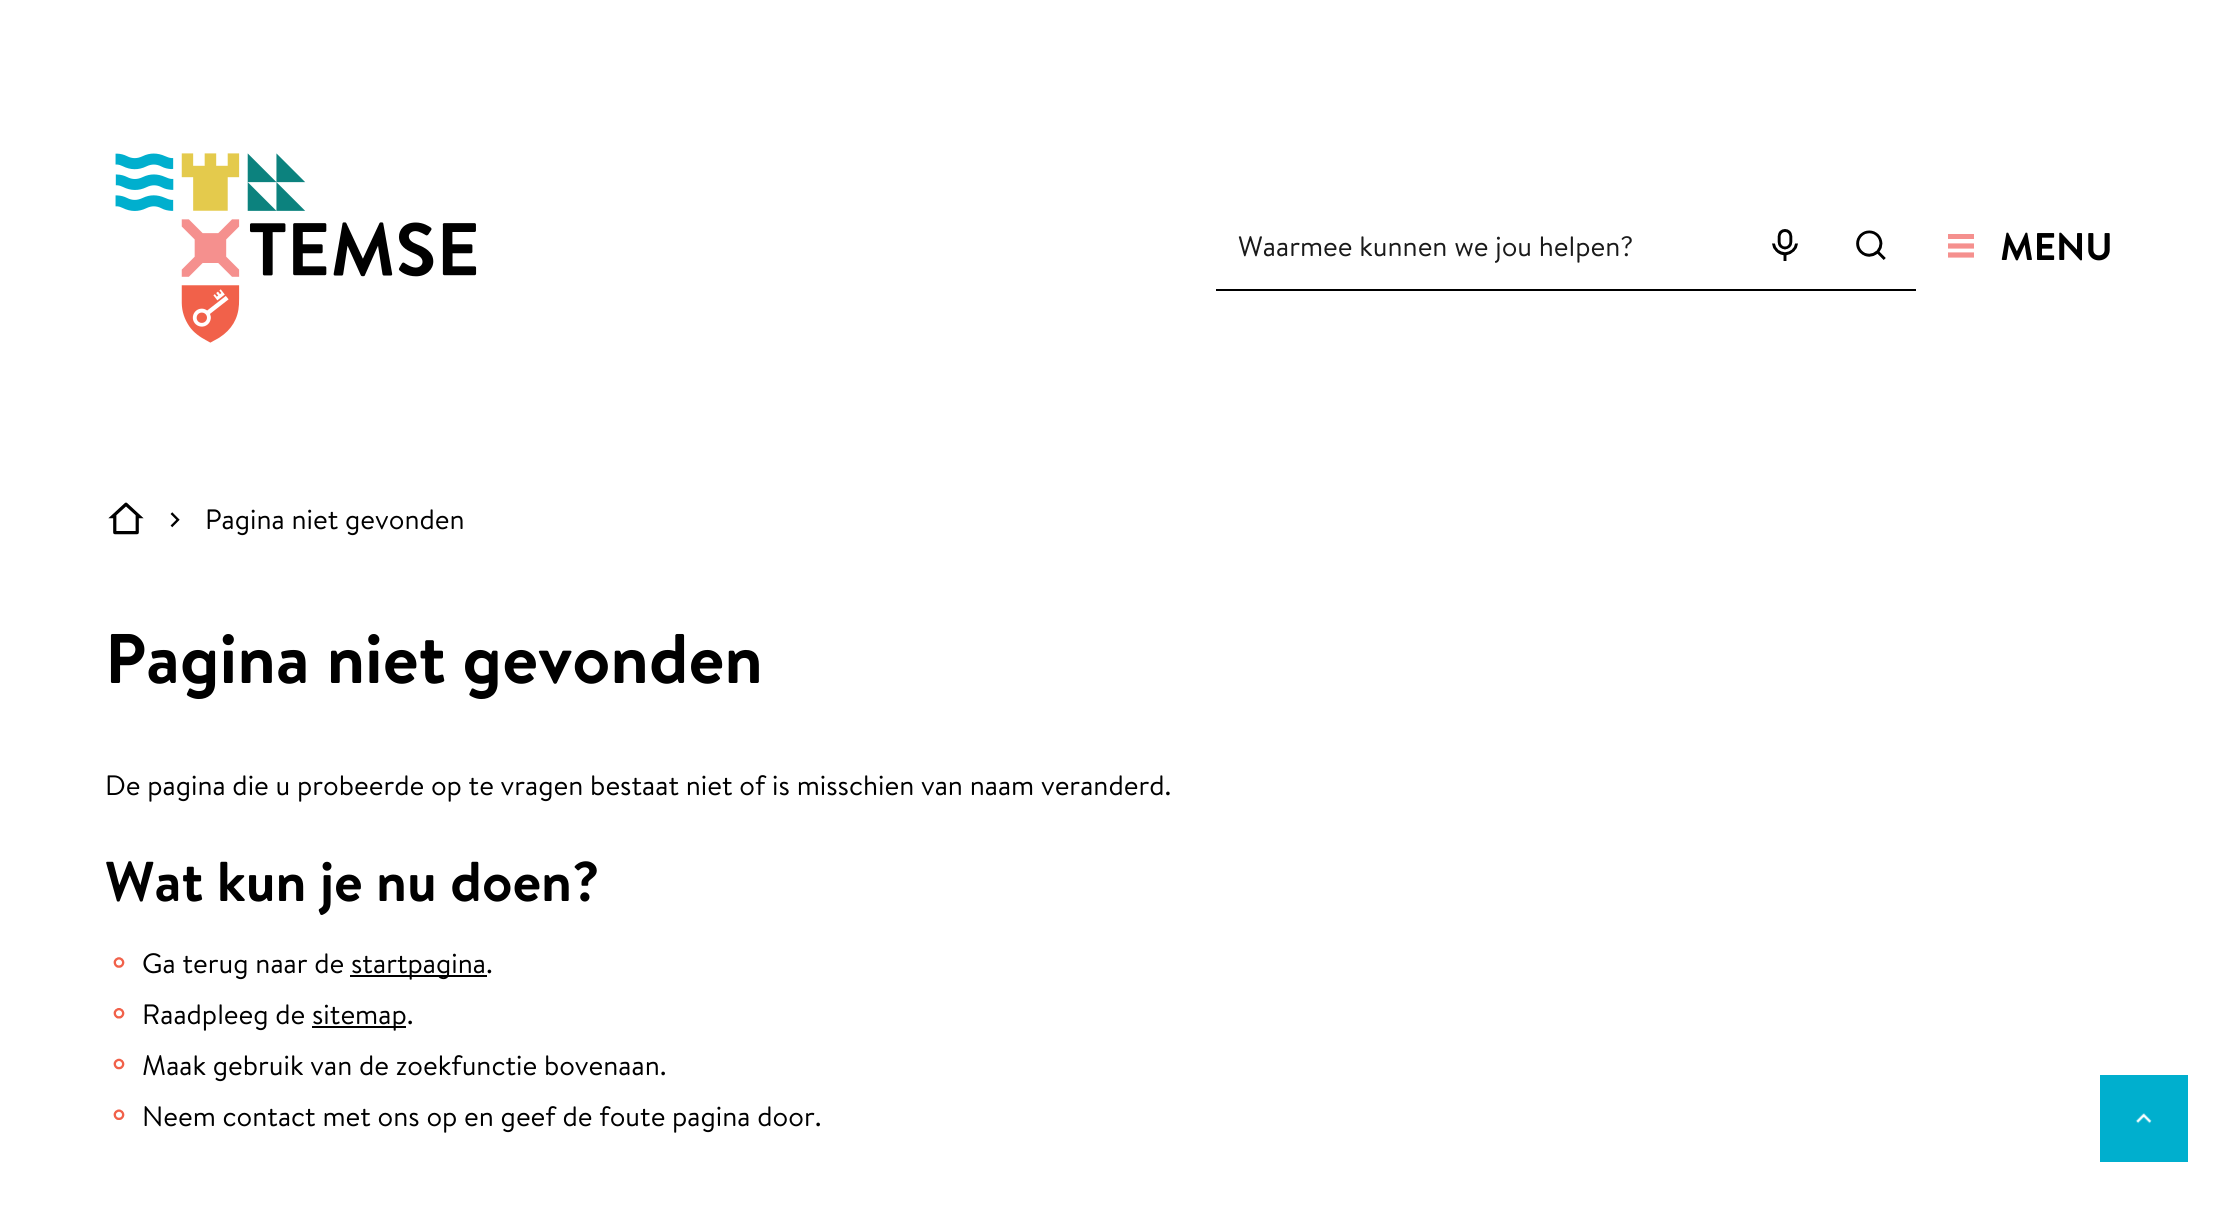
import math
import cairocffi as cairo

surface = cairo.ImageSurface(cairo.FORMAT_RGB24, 2240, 1214)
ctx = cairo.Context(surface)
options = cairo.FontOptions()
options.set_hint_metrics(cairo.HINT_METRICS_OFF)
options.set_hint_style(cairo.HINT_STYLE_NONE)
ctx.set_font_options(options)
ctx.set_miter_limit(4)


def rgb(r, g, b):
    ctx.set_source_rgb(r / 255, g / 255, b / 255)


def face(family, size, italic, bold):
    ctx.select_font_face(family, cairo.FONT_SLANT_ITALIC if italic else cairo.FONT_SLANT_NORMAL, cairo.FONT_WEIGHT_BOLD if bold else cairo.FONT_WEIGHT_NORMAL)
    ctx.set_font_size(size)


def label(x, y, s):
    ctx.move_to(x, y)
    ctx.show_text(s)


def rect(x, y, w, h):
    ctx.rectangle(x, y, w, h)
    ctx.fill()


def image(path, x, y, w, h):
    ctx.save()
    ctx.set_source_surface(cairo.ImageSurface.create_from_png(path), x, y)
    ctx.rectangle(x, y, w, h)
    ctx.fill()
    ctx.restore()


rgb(255, 255, 255)
ctx.paint()
image('image0.png', 115, 153, 362, 190)
rgb(0, 0, 0)
rect(1216, 289, 700, 2)
face('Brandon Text', 28, 0, 0)
rgb(26, 26, 26)
label(1238, 256, 'Waarmee kunnen we jou helpen?')
image('image1.png', 1772, 229, 26, 32)
image('image2.png', 1856, 230, 30, 30)
rgb(245, 144, 142)
rect(1948, 234, 26, 5)
ctx.new_path()
ctx.move_to(1948, 246)
ctx.line_to(1974, 246)
ctx.move_to(1948, 255)
ctx.line_to(1974, 255)
ctx.set_line_width(5.2)
ctx.stroke()
face('Brandon Text', 38.5, 0, 1)
rgb(0, 0, 0)
label(2000, 260, 'MENU')
image('image3.png', 108, 502, 36, 33)
image('image4.png', 170, 512, 10, 16)
face('Brandon Text', 28, 0, 0)
label(205, 529, 'Pagina niet gevonden')
face('Brandon Text', 70, 0, 1)
label(105, 683, 'Pagina niet gevonden')
face('Brandon Text', 28, 0, 0)
label(105, 795, 'De pagina die u probeerde op te vragen bestaat niet of is misschien van naam veranderd.')
face('Brandon Text', 56, 0, 1)
label(105, 901, 'Wat kun je nu doen?')
image('image5.png', 113, 957, 12, 11)
face('Brandon Text', 28, 0, 0)
label(142, 973, 'Ga terug naar de')
rect(350, 975, 137, 2)
label(351, 973, 'startpagina.')
image('image6.png', 113, 1008, 12, 11)
label(142, 1024, 'Raadpleeg de')
rect(312, 1026, 94, 2)
label(312, 1024, 'sitemap.')
image('image7.png', 113, 1058, 12, 12)
label(142, 1075, 'Maak gebruik van de zoekfunctie bovenaan.')
image('image8.png', 113, 1109, 12, 11)
label(142, 1126, 'Neem contact met ons op en geef de foute pagina door.')
rgb(0, 175, 206)
rect(2100, 1075, 88, 87)
image('image9.png', 2135, 1113, 17, 11)
surface.write_to_png('render.png')
